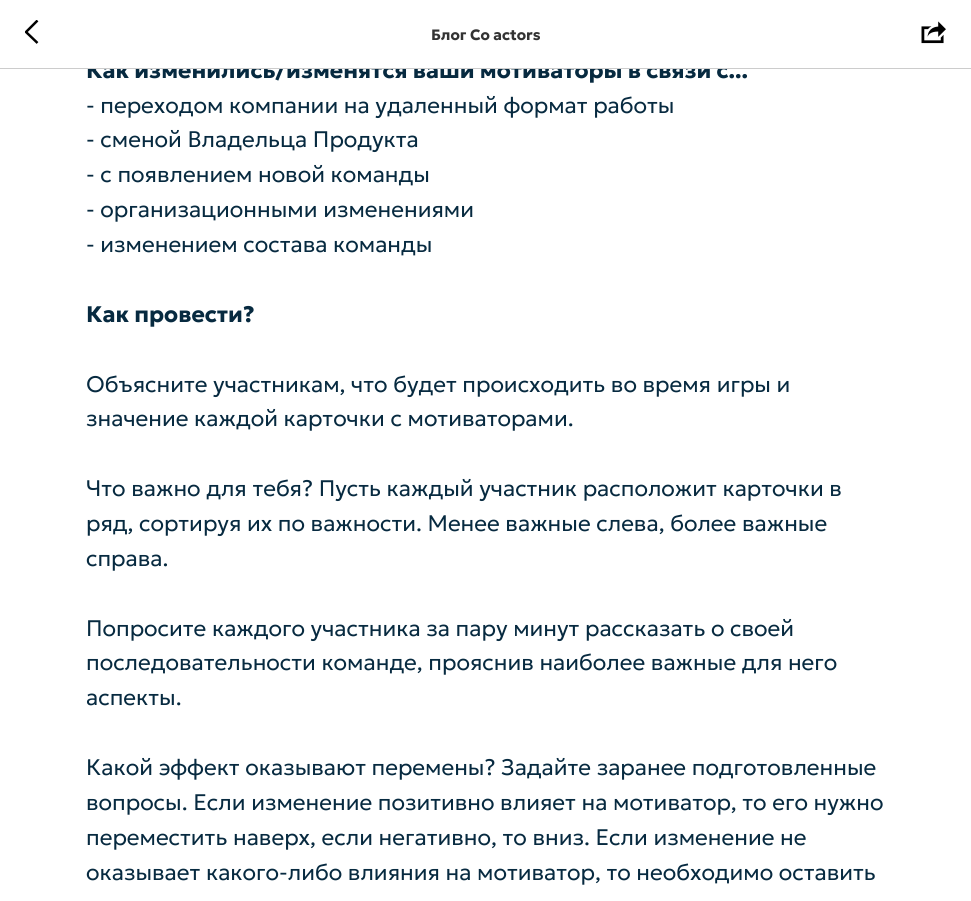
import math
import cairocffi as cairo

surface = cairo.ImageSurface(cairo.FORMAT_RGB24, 971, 901)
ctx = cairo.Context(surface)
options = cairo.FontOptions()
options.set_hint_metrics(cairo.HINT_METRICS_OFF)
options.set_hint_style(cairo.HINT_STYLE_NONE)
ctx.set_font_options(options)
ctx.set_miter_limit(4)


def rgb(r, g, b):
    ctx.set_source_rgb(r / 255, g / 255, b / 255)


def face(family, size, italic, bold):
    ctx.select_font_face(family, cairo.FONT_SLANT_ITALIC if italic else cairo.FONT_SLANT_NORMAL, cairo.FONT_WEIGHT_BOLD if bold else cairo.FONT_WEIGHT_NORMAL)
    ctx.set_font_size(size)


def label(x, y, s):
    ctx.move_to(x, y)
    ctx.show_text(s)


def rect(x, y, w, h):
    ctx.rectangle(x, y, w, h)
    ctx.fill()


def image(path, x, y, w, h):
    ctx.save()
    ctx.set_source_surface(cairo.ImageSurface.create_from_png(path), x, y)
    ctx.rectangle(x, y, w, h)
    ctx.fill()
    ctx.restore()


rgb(255, 255, 255)
ctx.paint()
face('Geologica', 22.5, 0, 1)
rgb(7, 42, 64)
label(86, 78, 'Как изменились/изменятся ваши мотиваторы в связи с...')
rgb(255, 255, 255)
rect(87, 59, 641, 9)
rgb(204, 204, 204)
rect(0, 68, 971, 1)
ctx.save()
ctx.rectangle(25, 20, 14, 25)
ctx.clip()
ctx.new_path()
ctx.move_to(37.5, 43)
ctx.line_to(26, 32)
ctx.line_to(37.5, 20.5)
rgb(0, 0, 0)
ctx.set_line_width(2.5)
ctx.stroke()
ctx.restore()
face('Geologica', 15, 0, 1)
rgb(51, 51, 51)
label(431, 40, 'Блог Co actors')
image('image0.png', 921, 21, 25, 23)
face('Geologica Light', 22.5, 0, 0)
rgb(7, 42, 64)
label(86, 113, '- переходом компании на удаленный формат работы')
label(86, 147, '- сменой Владельца Продукта')
label(86, 182, '- с появлением новой команды')
label(86, 217, '- организационными изменениями')
label(86, 252, '- изменением состава команды')
face('Geologica', 22.5, 0, 1)
label(86, 322, 'Как провести?')
face('Geologica Light', 22.5, 0, 0)
label(86, 392, 'Объясните участникам, что будет происходить во время игры и')
label(86, 426, 'значение каждой карточки с мотиваторами.')
label(86, 496, 'Что важно для тебя? Пусть каждый участник расположит карточки в')
label(86, 531, 'ряд, сортируя их по важности. Менее важные слева, более важные')
label(86, 566, 'справа.')
label(86, 636, 'Попросите каждого участника за пару минут рассказать о своей')
label(86, 670, 'последовательности команде, прояснив наиболее важные для него')
label(86, 705, 'аспекты.')
label(86, 775, 'Какой эффект оказывают перемены? Задайте заранее подготовленные')
label(86, 810, 'вопросы. Если изменение позитивно влияет на мотиватор, то его нужно')
label(86, 845, 'переместить наверх, если негативно, то вниз. Если изменение не')
label(86, 880, 'оказывает какого-либо влияния на мотиватор, то необходимо оставить')
surface.write_to_png('render.png')
